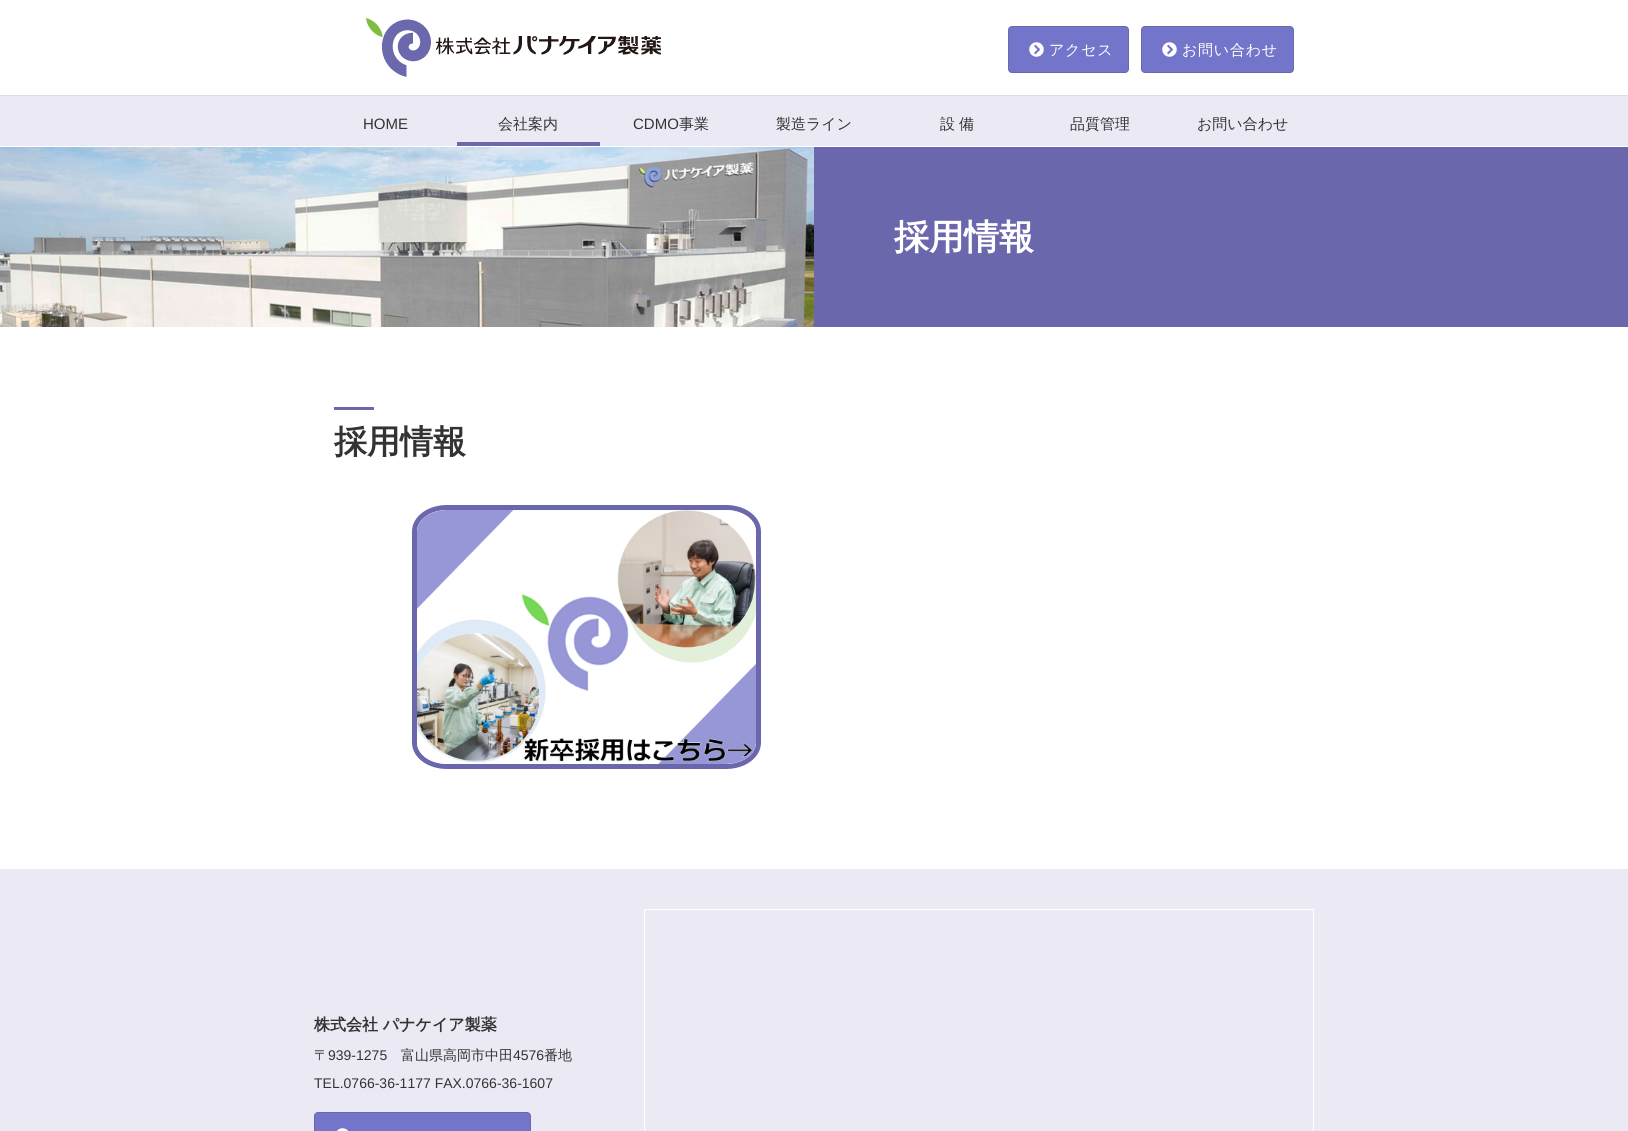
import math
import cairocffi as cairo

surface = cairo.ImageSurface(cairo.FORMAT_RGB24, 1628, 1131)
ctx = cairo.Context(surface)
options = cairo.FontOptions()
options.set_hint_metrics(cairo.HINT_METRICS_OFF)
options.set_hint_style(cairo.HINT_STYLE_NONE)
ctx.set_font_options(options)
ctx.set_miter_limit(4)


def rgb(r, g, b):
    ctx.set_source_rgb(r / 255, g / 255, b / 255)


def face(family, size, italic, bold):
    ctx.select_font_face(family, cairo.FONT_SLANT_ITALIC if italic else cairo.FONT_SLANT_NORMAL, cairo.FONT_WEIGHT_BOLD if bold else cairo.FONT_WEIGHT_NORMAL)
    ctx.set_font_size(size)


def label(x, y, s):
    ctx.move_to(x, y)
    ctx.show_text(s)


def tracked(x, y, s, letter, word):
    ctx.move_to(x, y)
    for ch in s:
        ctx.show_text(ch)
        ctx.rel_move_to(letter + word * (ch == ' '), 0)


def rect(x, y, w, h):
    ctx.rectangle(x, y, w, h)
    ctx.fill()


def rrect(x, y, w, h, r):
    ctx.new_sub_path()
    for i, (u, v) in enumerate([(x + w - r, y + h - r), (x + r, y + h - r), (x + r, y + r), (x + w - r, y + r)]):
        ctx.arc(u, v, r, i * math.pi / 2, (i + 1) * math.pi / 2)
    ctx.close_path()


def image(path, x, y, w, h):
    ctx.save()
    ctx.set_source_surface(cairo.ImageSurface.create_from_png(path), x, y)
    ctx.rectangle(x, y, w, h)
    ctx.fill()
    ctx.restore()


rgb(255, 255, 255)
ctx.paint()
image('image0.png', 366, 18, 295, 59)
rgb(115, 117, 203)
rrect(1008.5, 26.5, 120, 46, 3.5)
ctx.fill_preserve()
rgb(107, 104, 173)
ctx.set_line_width(1)
ctx.stroke()
image('image1.png', 1029, 42, 15, 15)
face('WenQuanYi Zen Hei Medium', 15, 0, 0)
rgb(255, 255, 255)
tracked(1049, 55, 'アクセス', 0.75, 0)
rgb(115, 117, 203)
rrect(1141.5, 26.5, 152, 46, 3.5)
ctx.fill_preserve()
rgb(107, 104, 173)
ctx.stroke()
image('image1.png', 1162, 42, 15, 15)
rgb(255, 255, 255)
tracked(1182, 55, 'お問い合わせ', 0.75, 0)
rgb(235, 234, 244)
rect(0, 96, 1628, 50)
rgb(221, 220, 237)
rect(0, 95, 1628, 1)
face('Liberation Sans', 15, 0, 0)
rgb(51, 51, 51)
label(363, 129, 'HOME')
face('WenQuanYi Zen Hei Medium', 15, 0, 0)
label(498, 129, '会社案内')
rgb(107, 104, 173)
rect(457, 142, 143, 4)
face('Liberation Sans', 15, 0, 0)
rgb(51, 51, 51)
label(633, 129, 'CDMO')
face('WenQuanYi Zen Hei Medium', 15, 0, 0)
label(679, 129, '事業')
label(776, 129, '製造ライン')
label(940, 129, '設')
label(959, 129, '備')
label(1070, 129, '品質管理')
label(1197, 129, 'お問い合わせ')
image('image2.png', 0, 147, 814, 180)
rgb(107, 103, 172)
rect(814, 147, 814, 180)
face('WenQuanYi Zen Hei', 35, 0, 1)
rgb(255, 255, 255)
label(894, 249, '採用情報')
rgb(107, 104, 173)
rect(334, 407, 40, 3)
face('WenQuanYi Zen Hei', 33, 0, 1)
rgb(51, 51, 51)
label(334, 453, '採用情報')
ctx.new_path()
ctx.move_to(447, 507.5)
ctx.line_to(726, 507.5)
ctx.curve_to(744, 507.5, 758.5, 518, 758.5, 531.5)
ctx.line_to(758.5, 742.5)
ctx.curve_to(758.5, 756, 744, 766.5, 726, 766.5)
ctx.line_to(447, 766.5)
ctx.curve_to(429, 766.5, 414.5, 756, 414.5, 742.5)
ctx.line_to(414.5, 531.5)
ctx.curve_to(414.5, 518, 429, 507.5, 447, 507.5)
ctx.close_path()
rgb(107, 103, 172)
ctx.set_line_width(5)
ctx.stroke()
image('image3.png', 417, 510, 339, 254)
rgb(235, 234, 244)
rect(0, 869, 1628, 262)
face('WenQuanYi Zen Hei', 16, 0, 1)
rgb(51, 51, 51)
label(314, 1030, '株式会社 パナケイア製薬')
face('WenQuanYi Zen Hei Medium', 14, 0, 0)
label(314, 1060, '〒')
face('Liberation Sans', 14, 0, 0)
label(328, 1060, '939-1275')
face('WenQuanYi Zen Hei Medium', 14, 0, 0)
label(401, 1060, '富山県高岡市中田')
face('Liberation Sans', 14, 0, 0)
label(513, 1060, '4576')
face('WenQuanYi Zen Hei Medium', 14, 0, 0)
label(544, 1060, '番地')
face('Liberation Sans', 14, 0, 0)
label(314, 1088, 'TEL.0766-36-1177 FAX.0766-36-1607')
rgb(115, 117, 203)
rrect(314.5, 1112.5, 216, 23, 3.5)
ctx.fill_preserve()
rgb(107, 104, 173)
ctx.set_line_width(1)
ctx.stroke()
image('image4.png', 337, 1128, 11, 3)
ctx.rectangle(644.5, 909.5, 669, 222)
rgb(255, 255, 255)
ctx.stroke()
surface.write_to_png('render.png')
